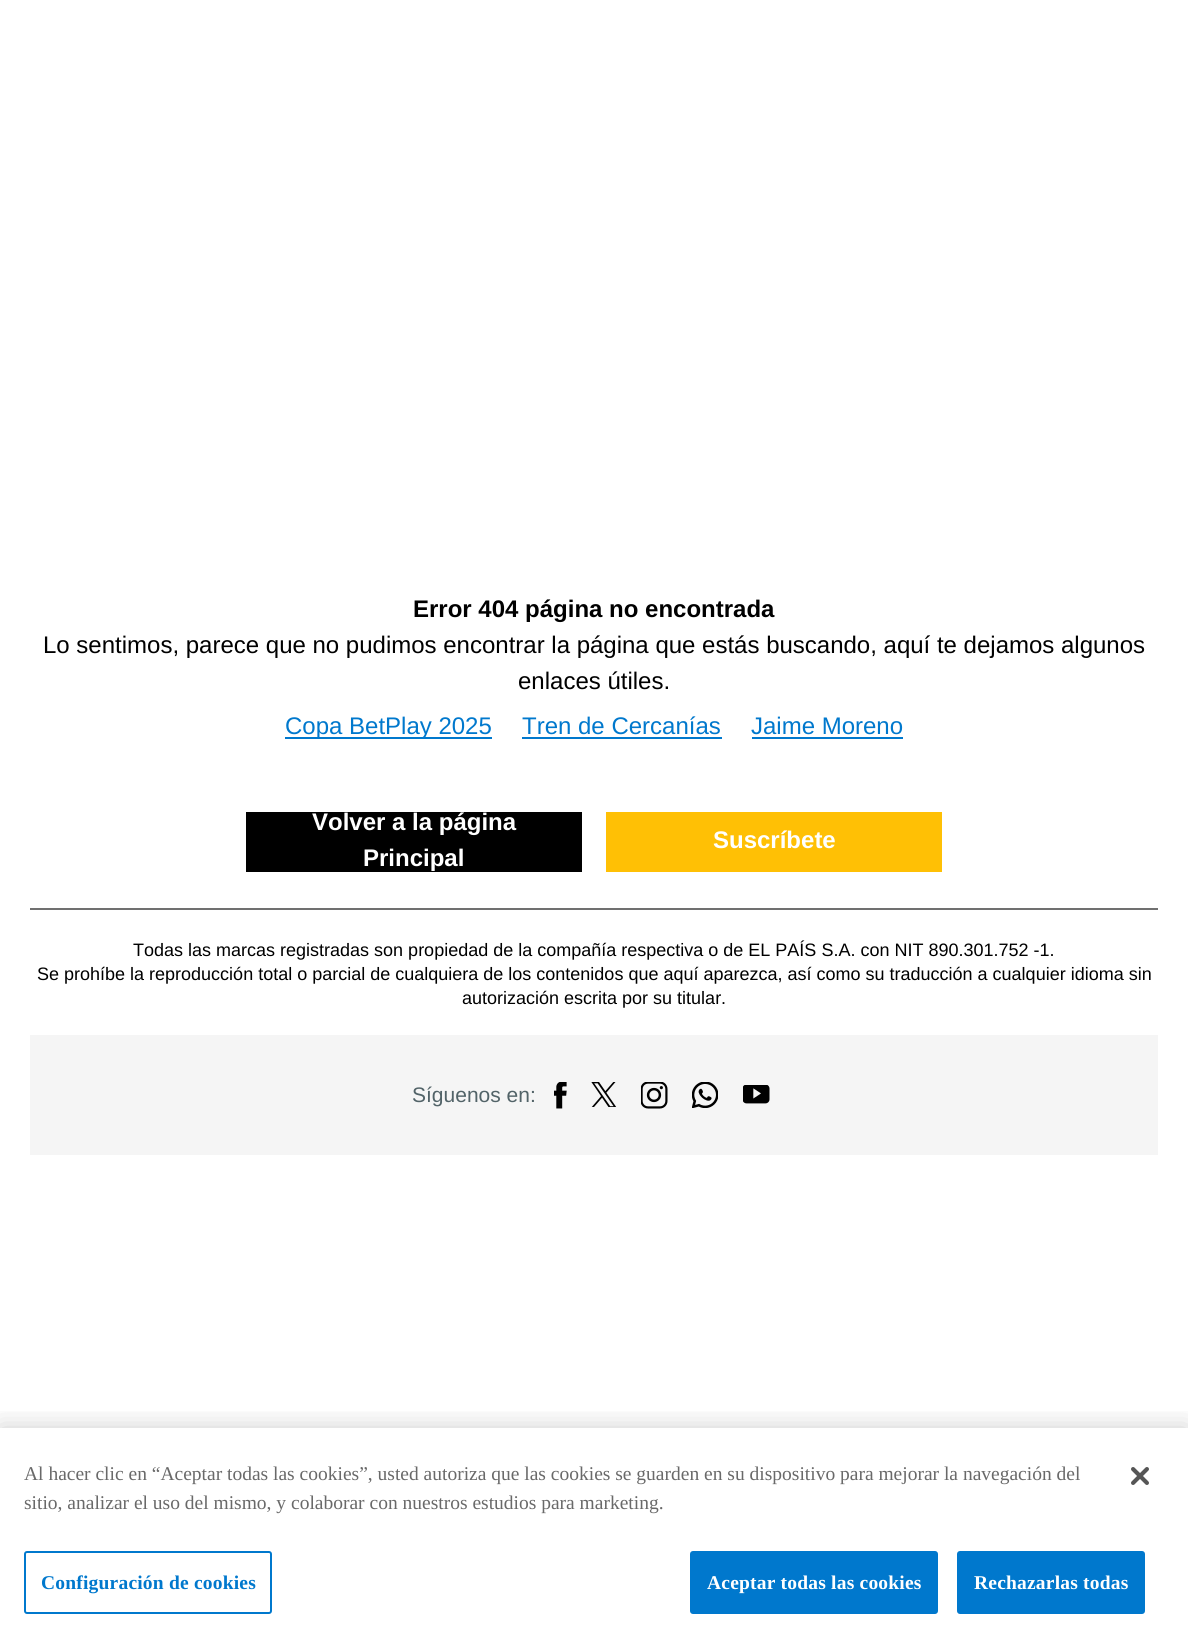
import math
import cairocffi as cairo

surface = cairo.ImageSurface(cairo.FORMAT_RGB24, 1188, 1644)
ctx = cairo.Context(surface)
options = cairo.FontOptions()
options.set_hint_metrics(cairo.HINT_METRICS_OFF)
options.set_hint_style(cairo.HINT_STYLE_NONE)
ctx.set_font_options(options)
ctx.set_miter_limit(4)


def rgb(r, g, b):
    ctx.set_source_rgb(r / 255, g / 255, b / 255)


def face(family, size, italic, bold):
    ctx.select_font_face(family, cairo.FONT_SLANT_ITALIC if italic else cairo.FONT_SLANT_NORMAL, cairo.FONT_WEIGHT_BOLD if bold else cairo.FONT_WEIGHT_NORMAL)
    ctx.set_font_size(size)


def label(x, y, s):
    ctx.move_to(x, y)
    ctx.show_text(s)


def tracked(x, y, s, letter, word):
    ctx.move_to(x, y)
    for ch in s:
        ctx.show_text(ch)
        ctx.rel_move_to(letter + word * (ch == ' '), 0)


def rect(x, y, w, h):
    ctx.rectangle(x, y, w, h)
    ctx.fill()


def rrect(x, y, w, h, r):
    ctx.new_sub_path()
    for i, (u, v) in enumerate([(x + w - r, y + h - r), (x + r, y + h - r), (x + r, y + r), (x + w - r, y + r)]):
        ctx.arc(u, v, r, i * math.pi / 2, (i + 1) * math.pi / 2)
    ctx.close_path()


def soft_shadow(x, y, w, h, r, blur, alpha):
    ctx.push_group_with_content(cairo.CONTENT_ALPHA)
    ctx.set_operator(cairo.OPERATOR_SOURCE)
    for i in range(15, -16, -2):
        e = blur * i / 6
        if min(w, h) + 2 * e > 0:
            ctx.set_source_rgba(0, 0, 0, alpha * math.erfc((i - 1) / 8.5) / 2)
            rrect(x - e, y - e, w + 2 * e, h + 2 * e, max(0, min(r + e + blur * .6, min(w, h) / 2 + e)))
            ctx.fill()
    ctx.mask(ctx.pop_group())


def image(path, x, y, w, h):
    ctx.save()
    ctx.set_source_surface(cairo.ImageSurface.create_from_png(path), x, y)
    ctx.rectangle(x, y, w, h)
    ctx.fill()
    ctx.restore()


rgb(255, 255, 255)
ctx.paint()
face('Liberation Sans', 24, 0, 1)
rgb(0, 0, 0)
label(413, 617, 'Error 404 página no encontrada')
face('Liberation Sans', 24, 0, 0)
label(43, 653, 'Lo sentimos, parece que no pudimos encontrar la página que estás buscando, aquí te dejamos algunos')
label(518, 689, 'enlaces útiles.')
rgb(0, 120, 205)
rect(285, 737, 207, 2)
label(285, 734, 'Copa BetPlay 2025')
label(522, 734, 'Tren de Cercanías')
rect(522, 737, 200, 2)
label(751, 734, 'Jaime Moreno')
rect(752, 737, 151, 2)
rgb(0, 0, 0)
rect(246, 812, 336, 60)
face('Liberation Sans', 24, 0, 1)
rgb(255, 255, 255)
label(312, 830, 'Volver a la página')
label(363, 866, 'Principal')
rgb(255, 192, 5)
rect(606, 812, 336, 60)
rgb(255, 255, 255)
label(713, 848, 'Suscríbete')
rgb(112, 112, 112)
rect(30, 908, 1128, 2)
face('Liberation Sans', 18, 0, 0)
rgb(0, 0, 0)
label(133, 956, 'Todas las marcas registradas son propiedad de la compañía respectiva o de EL PAÍS S.A. con NIT 890.301.752 -1.')
label(37, 980, 'Se prohíbe la reproducción total o parcial de cualquiera de los contenidos que aquí aparezca, así como su traducción a cualquier idioma sin')
label(462, 1004, 'autorización escrita por su titular.')
rgb(245, 245, 245)
rect(30, 1035, 1128, 120)
face('Liberation Sans', 21, 0, 0)
rgb(82, 99, 104)
label(412, 1102, 'Síguenos en:')
image('image0.png', 554, 1082, 13, 27)
image('image1.png', 591, 1082, 26, 25)
image('image2.png', 641, 1082, 27, 27)
image('image3.png', 692, 1082, 26, 26)
image('image4.png', 743, 1085, 27, 19)
ctx.save()
ctx.rectangle(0, 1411, 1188, 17)
ctx.clip()
rgb(0, 0, 0)
soft_shadow(0, 1428, 1188, 216, 0, 13.5, 0.2)
ctx.restore()
face('Liberation Serif', 19.5, 0, 0)
rgb(105, 105, 105)
label(24, 1480, 'Al hacer clic en “Aceptar todas las cookies”, usted autoriza que las cookies se guarden en su dispositivo para mejorar la navegación del')
label(24, 1509, 'sitio, analizar el uso del mismo, y colaborar con nuestros estudios para marketing.')
rrect(25, 1552, 246, 61, 2)
rgb(0, 120, 205)
ctx.stroke()
face('Liberation Serif', 19.5, 0, 1)
tracked(41, 1589, 'Configuración de cookies', 0.2, 0)
rrect(691, 1552, 246, 61, 2)
ctx.fill_preserve()
ctx.stroke()
rgb(255, 255, 255)
tracked(707, 1589, 'Aceptar todas las cookies', 0.2, 0)
rgb(0, 120, 205)
rrect(958, 1552, 186, 61, 2)
ctx.fill_preserve()
ctx.stroke()
rgb(255, 255, 255)
tracked(974, 1589, 'Rechazarlas todas', 0.2, 0)
image('image5.png', 1131, 1467, 18, 18)
surface.write_to_png('render.png')
